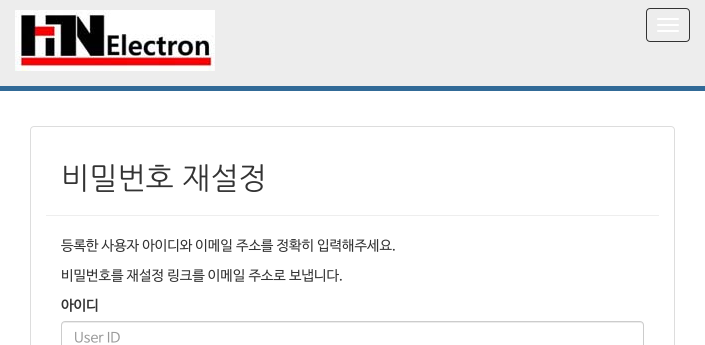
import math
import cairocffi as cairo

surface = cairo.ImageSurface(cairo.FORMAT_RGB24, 705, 345)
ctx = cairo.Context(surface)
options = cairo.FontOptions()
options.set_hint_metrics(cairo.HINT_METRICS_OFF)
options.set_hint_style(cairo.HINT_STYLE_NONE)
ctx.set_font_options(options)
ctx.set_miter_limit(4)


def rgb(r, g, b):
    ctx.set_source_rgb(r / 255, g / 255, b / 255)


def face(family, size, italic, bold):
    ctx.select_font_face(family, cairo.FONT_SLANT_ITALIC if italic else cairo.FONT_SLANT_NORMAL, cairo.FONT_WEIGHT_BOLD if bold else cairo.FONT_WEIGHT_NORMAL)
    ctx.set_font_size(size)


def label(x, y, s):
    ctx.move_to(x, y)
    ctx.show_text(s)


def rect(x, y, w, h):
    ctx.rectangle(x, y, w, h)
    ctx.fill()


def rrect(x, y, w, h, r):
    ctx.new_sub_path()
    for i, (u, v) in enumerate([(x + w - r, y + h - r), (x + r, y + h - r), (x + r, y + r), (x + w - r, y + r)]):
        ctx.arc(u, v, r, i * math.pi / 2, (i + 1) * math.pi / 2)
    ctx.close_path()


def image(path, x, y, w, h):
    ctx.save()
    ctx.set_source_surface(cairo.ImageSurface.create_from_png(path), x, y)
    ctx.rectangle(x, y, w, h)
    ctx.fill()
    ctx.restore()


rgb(255, 255, 255)
ctx.paint()
rgb(237, 237, 237)
rect(0, 0, 705, 86)
rgb(49, 106, 151)
rect(0, 86, 705, 5)
image('image0.png', 15, 10, 200, 61)
rrect(646.5, 8.5, 43, 33, 3.5)
rgb(51, 51, 51)
ctx.set_line_width(1)
ctx.stroke()
rgb(255, 255, 255)
rrect(657, 18, 22, 2, 1)
ctx.fill()
rrect(657, 24, 22, 2, 1)
ctx.fill()
rrect(657, 30, 22, 2, 1)
ctx.fill()
rrect(30.5, 126.5, 644, 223, 3.5)
rgb(221, 221, 221)
ctx.stroke()
face('NanumGothic', 30, 0, 0)
rgb(51, 51, 51)
label(61, 189, '비밀번호 재설정')
rgb(238, 238, 238)
rect(46, 215, 613, 1)
face('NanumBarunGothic', 14, 0, 0)
rgb(51, 51, 51)
label(61, 250, '등록한 사용자 아이디와 이메일 주소를 정확히 입력해주세요.')
label(61, 280, '비밀번호를 재설정 링크를 이메일 주소로 보냅니다.')
face('NanumBarunGothic', 14, 0, 1)
label(61, 310, '아이디')
rgb(236, 236, 236)
ctx.new_path()
ctx.move_to(65, 323)
ctx.line_to(640, 323)
ctx.curve_to(642, 323, 643, 324, 643, 326)
ctx.line_to(643, 325)
ctx.curve_to(643, 323, 642, 322, 640, 322)
ctx.line_to(65, 322)
ctx.curve_to(63, 322, 62, 323, 62, 325)
ctx.line_to(62, 326)
ctx.curve_to(62, 324, 63, 323, 65, 323)
ctx.close_path()
ctx.fill()
rrect(61.5, 321.5, 582, 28, 3.5)
rgb(204, 204, 204)
ctx.stroke()
face('NanumBarunGothic', 14, 0, 0)
rgb(153, 153, 153)
label(74, 342, 'User ID')
surface.write_to_png('render.png')
